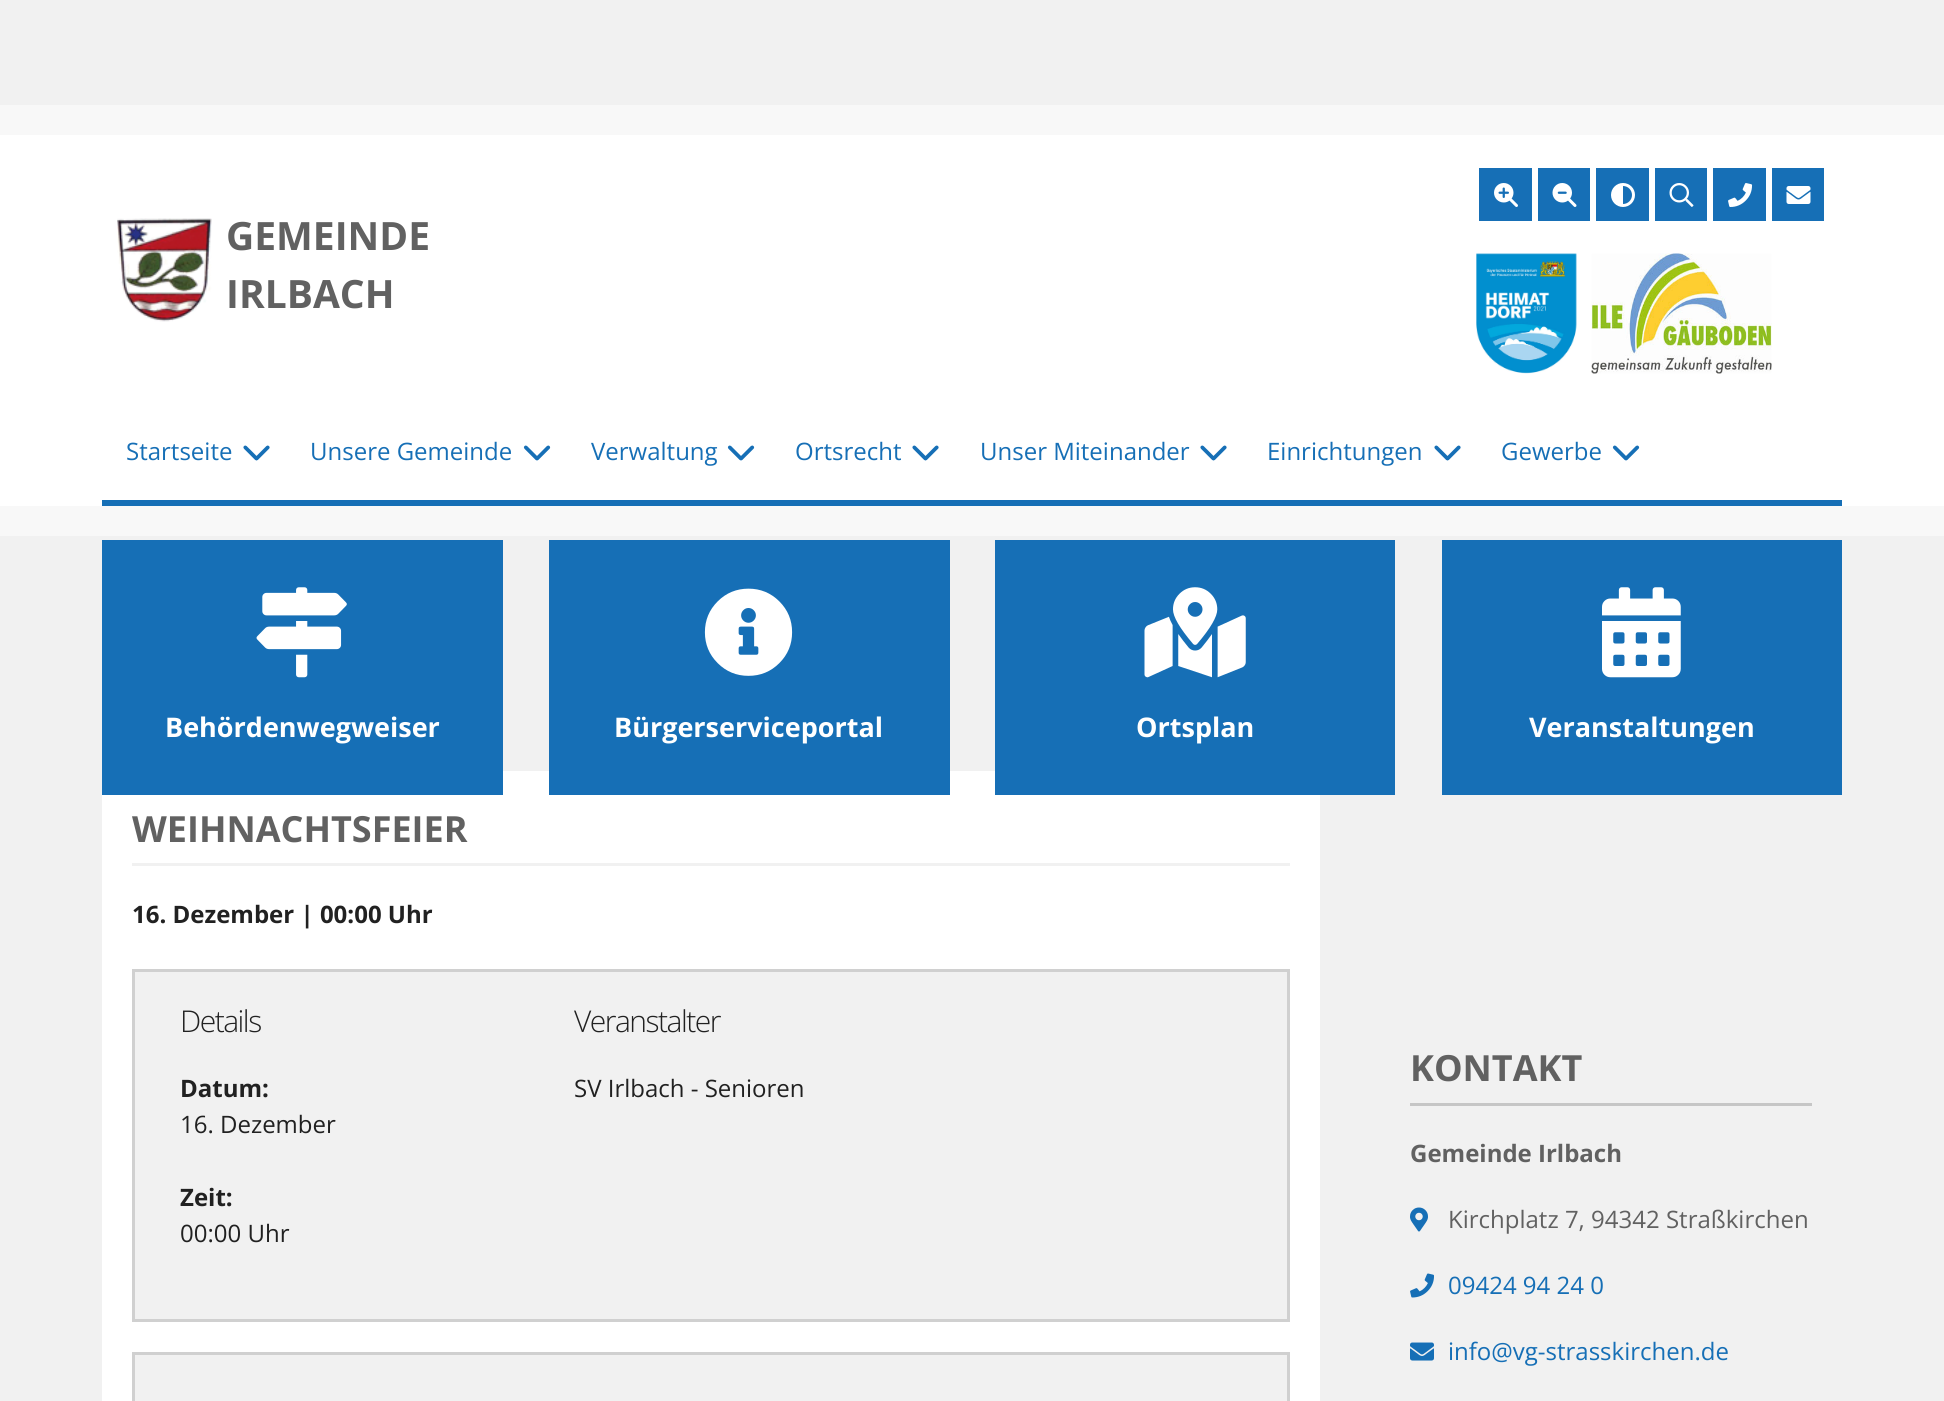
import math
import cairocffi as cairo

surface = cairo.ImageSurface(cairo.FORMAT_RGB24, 1944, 1401)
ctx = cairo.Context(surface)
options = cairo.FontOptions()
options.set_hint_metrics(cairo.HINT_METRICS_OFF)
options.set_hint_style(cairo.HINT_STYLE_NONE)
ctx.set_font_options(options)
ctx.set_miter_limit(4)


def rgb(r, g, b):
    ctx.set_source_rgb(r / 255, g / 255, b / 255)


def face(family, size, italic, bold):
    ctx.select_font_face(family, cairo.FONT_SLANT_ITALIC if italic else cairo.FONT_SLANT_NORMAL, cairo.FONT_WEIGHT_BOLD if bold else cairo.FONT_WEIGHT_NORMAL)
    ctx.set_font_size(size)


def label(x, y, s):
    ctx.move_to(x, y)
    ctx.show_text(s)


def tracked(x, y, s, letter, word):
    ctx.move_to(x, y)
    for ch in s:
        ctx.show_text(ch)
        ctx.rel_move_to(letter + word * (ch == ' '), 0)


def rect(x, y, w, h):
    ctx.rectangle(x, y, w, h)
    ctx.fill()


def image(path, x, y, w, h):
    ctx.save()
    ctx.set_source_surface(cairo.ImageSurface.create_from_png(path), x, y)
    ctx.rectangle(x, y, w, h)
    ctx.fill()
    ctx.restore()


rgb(241, 241, 241)
ctx.paint()
rgb(248, 248, 248)
rect(0, 105, 1944, 30)
rect(0, 506, 1944, 30)
rgb(255, 255, 255)
rect(0, 135, 1944, 371)
image('image0.png', 117, 218, 95, 104)
face('Open Sans', 39, 0, 1)
rgb(97, 97, 97)
label(226, 250, 'GEMEINDE')
label(226, 308, 'IRLBACH')
rgb(22, 111, 182)
rect(1479, 168, 53, 53)
image('image1.png', 1494, 183, 24, 24)
rect(1538, 168, 52, 53)
image('image2.png', 1552, 183, 25, 24)
rect(1596, 168, 53, 53)
image('image3.png', 1611, 183, 24, 24)
rect(1655, 168, 52, 53)
image('image4.png', 1669, 183, 25, 24)
rect(1713, 168, 53, 53)
image('image5.png', 1728, 183, 25, 24)
rect(1772, 168, 52, 53)
image('image6.png', 1786, 186, 25, 18)
image('image7.png', 1476, 253, 101, 121)
image('image8.png', 1591, 253, 181, 121)
rect(102, 500, 1740, 6)
face('Open Sans', 24, 0, 0)
label(126, 460, 'Startseite')
image('image9.png', 243, 445, 27, 16)
label(310, 460, 'Unsere Gemeinde')
image('image10.png', 523, 445, 28, 16)
label(591, 460, 'Verwaltung')
image('image10.png', 727, 445, 28, 16)
label(795, 460, 'Ortsrecht')
image('image9.png', 912, 445, 27, 16)
label(980, 460, 'Unser Miteinander')
image('image9.png', 1200, 445, 27, 16)
label(1267, 460, 'Einrichtungen')
image('image9.png', 1434, 445, 27, 16)
label(1501, 460, 'Gewerbe')
image('image10.png', 1612, 445, 28, 16)
rgb(255, 255, 255)
rect(102, 771, 1218, 630)
rgb(22, 111, 182)
rect(102, 540, 401, 255)
image('image11.png', 256, 587, 91, 91)
face('Open Sans', 27, 0, 1)
rgb(255, 255, 255)
label(165, 737, 'Behördenwegweiser')
rgb(22, 111, 182)
rect(549, 540, 401, 255)
image('image12.png', 704, 588, 89, 88)
rgb(255, 255, 255)
label(614, 737, 'Bürgerserviceportal')
rgb(22, 111, 182)
rect(995, 540, 400, 255)
image('image13.png', 1144, 587, 102, 91)
rgb(255, 255, 255)
label(1136, 737, 'Ortsplan')
rgb(22, 111, 182)
rect(1442, 540, 400, 255)
image('image14.png', 1602, 587, 79, 91)
rgb(255, 255, 255)
label(1529, 737, 'Veranstaltungen')
rgb(241, 241, 241)
rect(132, 863, 1158, 3)
face('Open Sans', 36, 0, 1)
rgb(97, 97, 97)
label(132, 842, 'WEIHNACHTSFEIER')
face('Open Sans', 24, 0, 1)
rgb(33, 33, 33)
label(132, 923, '16. Dezember | 00:00 Uhr')
rgb(241, 241, 241)
ctx.rectangle(133.5, 970.5, 1155, 350)
ctx.fill_preserve()
rgb(208, 208, 208)
ctx.set_line_width(3)
ctx.stroke()
face('Open Sans Light', 30, 0, 0)
rgb(33, 33, 33)
tracked(180, 1032, 'Details', -1.5, 0)
face('Open Sans', 24, 0, 1)
label(180, 1097, 'Datum:')
face('Open Sans', 24, 0, 0)
label(180, 1133, '16. Dezember')
face('Open Sans', 24, 0, 1)
label(180, 1206, 'Zeit:')
face('Open Sans', 24, 0, 0)
label(180, 1242, '00:00 Uhr')
face('Open Sans Light', 30, 0, 0)
tracked(574, 1032, 'Veranstalter', -1.5, 0)
face('Open Sans', 24, 0, 0)
label(574, 1097, 'SV Irlbach - Senioren')
rgb(241, 241, 241)
ctx.rectangle(133.5, 1353.5, 1155, 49)
ctx.fill_preserve()
rgb(208, 208, 208)
ctx.stroke()
rgb(198, 198, 198)
rect(1410, 1103, 402, 3)
face('Open Sans', 36, 0, 1)
rgb(97, 97, 97)
label(1410, 1081, 'KONTAKT')
face('Open Sans', 24, 0, 1)
label(1410, 1162, 'Gemeinde Irlbach')
image('image15.png', 1410, 1207, 18, 25)
face('Open Sans', 24, 0, 0)
label(1448, 1228, 'Kirchplatz 7, 94342 Straßkirchen')
image('image16.png', 1410, 1273, 24, 25)
rgb(22, 111, 182)
label(1448, 1294, '09424 94 24 0')
image('image17.png', 1410, 1342, 24, 19)
label(1448, 1360, 'info@vg-strasskirchen.de')
surface.write_to_png('render.png')
